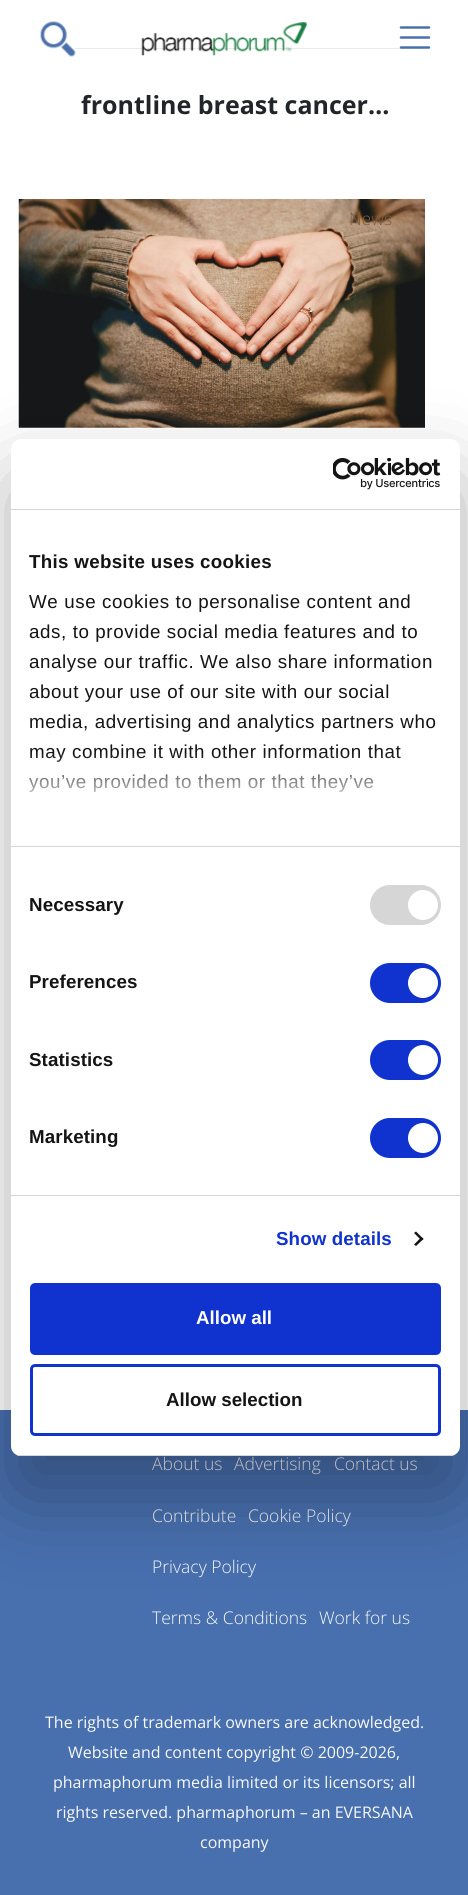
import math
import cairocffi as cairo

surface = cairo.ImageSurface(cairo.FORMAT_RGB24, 468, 1895)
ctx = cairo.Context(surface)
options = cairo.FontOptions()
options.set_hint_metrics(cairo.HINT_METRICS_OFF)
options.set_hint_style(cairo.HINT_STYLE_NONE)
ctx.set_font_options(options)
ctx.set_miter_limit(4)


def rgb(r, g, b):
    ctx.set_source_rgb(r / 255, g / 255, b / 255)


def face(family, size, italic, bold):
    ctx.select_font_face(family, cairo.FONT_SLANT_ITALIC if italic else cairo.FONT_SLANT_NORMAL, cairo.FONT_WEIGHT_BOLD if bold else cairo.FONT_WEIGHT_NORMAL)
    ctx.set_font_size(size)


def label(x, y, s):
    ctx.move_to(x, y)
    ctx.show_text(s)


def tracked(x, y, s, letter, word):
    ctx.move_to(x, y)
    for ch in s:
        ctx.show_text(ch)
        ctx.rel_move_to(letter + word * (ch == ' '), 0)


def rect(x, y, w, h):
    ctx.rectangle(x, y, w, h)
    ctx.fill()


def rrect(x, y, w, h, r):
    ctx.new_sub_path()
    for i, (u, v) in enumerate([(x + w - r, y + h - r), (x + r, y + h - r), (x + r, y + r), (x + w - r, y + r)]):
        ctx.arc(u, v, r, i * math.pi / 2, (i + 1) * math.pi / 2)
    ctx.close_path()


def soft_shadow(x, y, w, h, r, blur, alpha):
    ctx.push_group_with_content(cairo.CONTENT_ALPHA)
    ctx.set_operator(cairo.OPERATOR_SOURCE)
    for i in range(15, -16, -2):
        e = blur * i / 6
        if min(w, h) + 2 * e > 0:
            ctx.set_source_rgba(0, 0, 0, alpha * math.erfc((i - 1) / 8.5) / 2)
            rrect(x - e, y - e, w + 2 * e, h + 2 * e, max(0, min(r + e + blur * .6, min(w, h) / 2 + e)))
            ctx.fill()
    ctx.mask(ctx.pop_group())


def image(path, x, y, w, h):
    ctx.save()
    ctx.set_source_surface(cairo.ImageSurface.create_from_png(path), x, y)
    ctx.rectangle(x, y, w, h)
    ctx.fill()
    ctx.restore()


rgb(255, 255, 255)
ctx.paint()
rgb(33, 37, 41)
rect(75, 48, 350, 1)
ctx.set_source_rgba(1, 1, 1, 0.9)
rect(75, 48, 350, 1)
image('image0.png', 40, 21, 36, 36)
image('image1.png', 141, 22, 166, 34)
ctx.new_path()
ctx.move_to(401, 27.5)
ctx.line_to(429, 27.5)
ctx.move_to(401, 37.5)
ctx.line_to(429, 37.5)
ctx.move_to(401, 47.5)
ctx.line_to(429, 47.5)
rgb(72, 111, 174)
ctx.set_line_width(2.5)
ctx.set_line_cap(cairo.LINE_CAP_ROUND)
ctx.stroke()
face('Open Sans', 25, 0, 1)
rgb(33, 37, 41)
label(81, 114, 'frontline breast cancer…')
image('image2.png', 18, 199, 407, 229)
face('Open Sans Light', 17.5, 0, 0)
rgb(122, 94, 67)
label(349, 225, 'News')
rgb(72, 111, 174)
rect(0, 1410, 468, 485)
rgb(248, 249, 250)
label(152, 1470, 'About us')
label(234, 1470, 'Advertising')
label(334, 1470, 'Contact us')
label(152, 1522, 'Contribute')
label(248, 1522, 'Cookie Policy')
label(152, 1573, 'Privacy Policy')
label(152, 1624, 'Terms & Conditions')
label(319, 1624, 'Work for us')
face('Open Sans', 16, 0, 0)
label(45, 1728, 'The rights of trademark owners are acknowledged.')
label(68, 1758, 'Website and content copyright © 2009-2026,')
label(53, 1788, 'pharmaphorum media limited or its licensors; all')
label(56, 1818, 'rights reserved. pharmaphorum – an EVERSANA')
label(200, 1848, 'company')
rgb(0, 0, 0)
soft_shadow(11, 479, 449, 1017, 10, 42.5, 0.3)
rgb(255, 255, 255)
rrect(11, 439, 449, 1017, 10)
ctx.fill()
rgb(214, 214, 214)
rect(11, 509, 449, 1)
image('image3.png', 333, 458, 108, 32)
rect(11, 846, 449, 1)
face('Liberation Sans', 18.75, 0, 1)
rgb(20, 20, 20)
tracked(29, 568, 'This website uses cookies', 0.3, 0)
face('Liberation Sans', 18.75, 0, 0)
tracked(29, 608, 'We use cookies to personalise content and', 0.6, 0)
tracked(29, 638, 'ads, to provide social media features and to', 0.6, 0)
tracked(29, 668, 'analyse our traffic. We also share information', 0.6, 0)
tracked(29, 698, 'about your use of our site with our social', 0.6, 0)
tracked(29, 728, 'media, advertising and analytics partners who', 0.6, 0)
tracked(29, 758, 'may combine it with other information that', 0.6, 0)
tracked(29, 788, 'you’ve provided to them or that they’ve', 0.6, 0)
gradient = cairo.LinearGradient(227, 846, 227, 753)
gradient.add_color_stop_rgba(0, 1, 1, 1, 1)
gradient.add_color_stop_rgba(0.5, 1, 1, 1, 0.8)
gradient.add_color_stop_rgba(1, 1, 1, 1, 0)
ctx.set_source(gradient)
rect(28, 754, 374, 38)
rgb(214, 214, 214)
rect(11, 1195, 449, 1)
face('Liberation Sans', 18.75, 0, 1)
rgb(20, 20, 20)
tracked(29, 911, 'Necessary', 0.1, 0)
rgb(214, 214, 214)
rrect(370, 885, 71, 40, 20)
ctx.fill()
rgb(255, 255, 255)
ctx.arc(423, 905, 15, 0, 2 * math.pi)
ctx.fill()
rgb(20, 20, 20)
tracked(29, 988, 'Preferences', 0.1, 0)
rgb(16, 50, 207)
rrect(370, 963, 71, 40, 20)
ctx.fill()
rgb(255, 255, 255)
ctx.arc(423, 983, 15, 0, 2 * math.pi)
ctx.fill()
rgb(20, 20, 20)
tracked(29, 1066, 'Statistics', 0.1, 0)
rgb(16, 50, 207)
rrect(370, 1040, 71, 40, 20)
ctx.fill()
rgb(255, 255, 255)
ctx.arc(423, 1060, 15, 0, 2 * math.pi)
ctx.fill()
rgb(20, 20, 20)
tracked(29, 1143, 'Marketing', 0.1, 0)
rgb(16, 50, 207)
rrect(370, 1118, 71, 40, 20)
ctx.fill()
rgb(255, 255, 255)
ctx.arc(423, 1138, 15, 0, 2 * math.pi)
ctx.fill()
rgb(16, 50, 207)
tracked(276, 1245, 'Show details', 0.1, 0)
rgb(20, 20, 20)
ctx.new_path()
ctx.move_to(416, 1231.5)
ctx.line_to(423.5, 1239)
ctx.line_to(421.5, 1240.5)
ctx.line_to(414, 1233)
ctx.close_path()
ctx.fill()
ctx.new_path()
ctx.move_to(421.5, 1237)
ctx.line_to(423.5, 1239)
ctx.line_to(416, 1246)
ctx.line_to(414, 1244.5)
ctx.close_path()
ctx.fill()
ctx.save()
rrect(11, 439, 449, 1017, 10)
ctx.clip()
rgb(214, 214, 214)
rect(11, 1455, 449, 1)
ctx.restore()
rgb(16, 50, 207)
rrect(31.5, 1284.5, 408, 69, 3.5)
ctx.fill_preserve()
ctx.set_line_width(3)
ctx.set_line_cap(cairo.LINE_CAP_BUTT)
ctx.stroke()
rgb(255, 255, 255)
label(196, 1324, 'Allow all')
rrect(31.5, 1365.5, 408, 69, 3.5)
rgb(16, 50, 207)
ctx.stroke()
rgb(20, 20, 20)
label(166, 1406, 'Allow selection')
surface.write_to_png('render.png')
